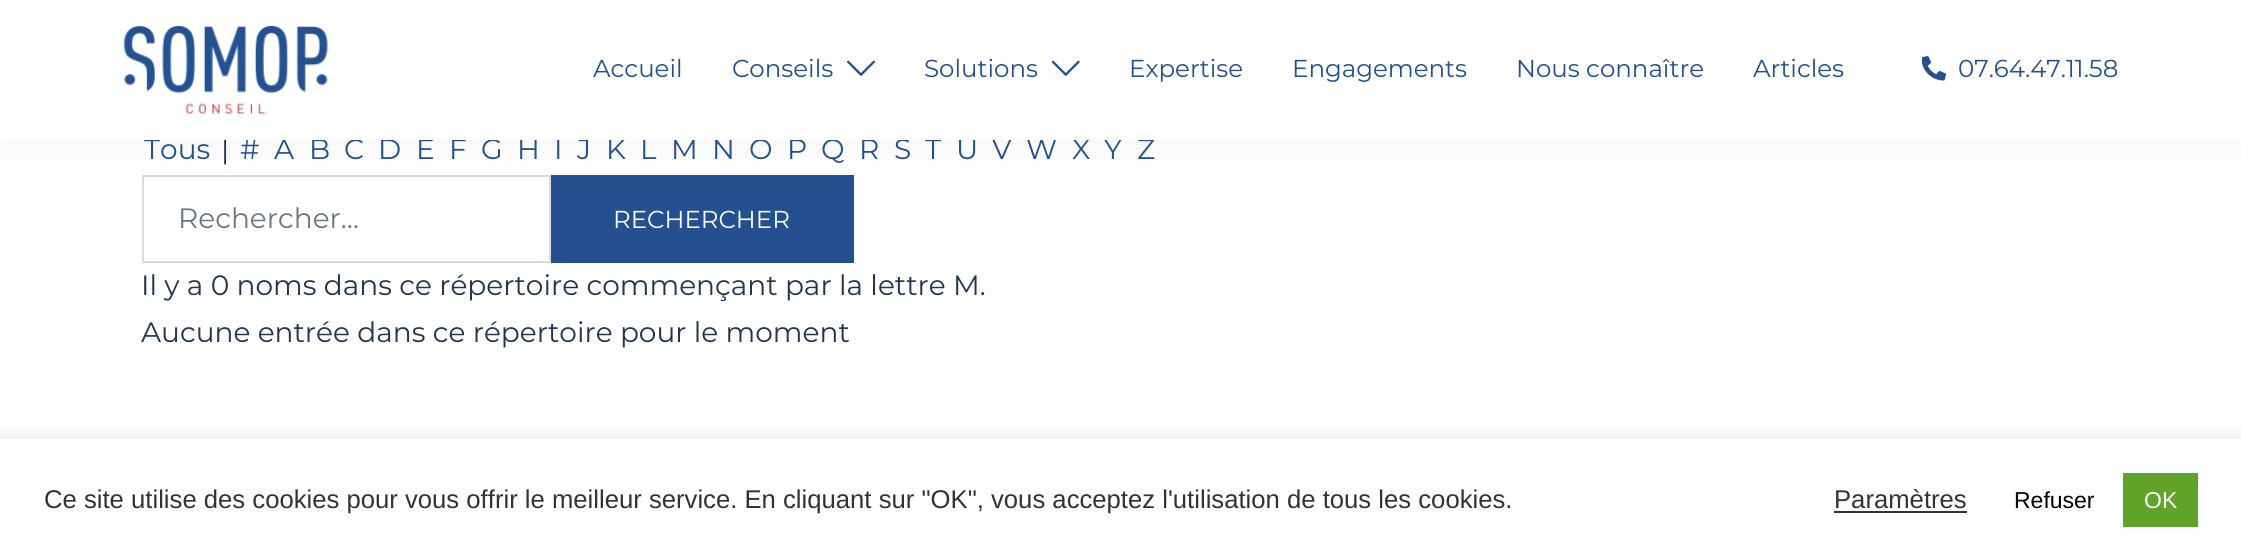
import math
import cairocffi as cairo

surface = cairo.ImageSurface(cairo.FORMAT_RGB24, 2241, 560)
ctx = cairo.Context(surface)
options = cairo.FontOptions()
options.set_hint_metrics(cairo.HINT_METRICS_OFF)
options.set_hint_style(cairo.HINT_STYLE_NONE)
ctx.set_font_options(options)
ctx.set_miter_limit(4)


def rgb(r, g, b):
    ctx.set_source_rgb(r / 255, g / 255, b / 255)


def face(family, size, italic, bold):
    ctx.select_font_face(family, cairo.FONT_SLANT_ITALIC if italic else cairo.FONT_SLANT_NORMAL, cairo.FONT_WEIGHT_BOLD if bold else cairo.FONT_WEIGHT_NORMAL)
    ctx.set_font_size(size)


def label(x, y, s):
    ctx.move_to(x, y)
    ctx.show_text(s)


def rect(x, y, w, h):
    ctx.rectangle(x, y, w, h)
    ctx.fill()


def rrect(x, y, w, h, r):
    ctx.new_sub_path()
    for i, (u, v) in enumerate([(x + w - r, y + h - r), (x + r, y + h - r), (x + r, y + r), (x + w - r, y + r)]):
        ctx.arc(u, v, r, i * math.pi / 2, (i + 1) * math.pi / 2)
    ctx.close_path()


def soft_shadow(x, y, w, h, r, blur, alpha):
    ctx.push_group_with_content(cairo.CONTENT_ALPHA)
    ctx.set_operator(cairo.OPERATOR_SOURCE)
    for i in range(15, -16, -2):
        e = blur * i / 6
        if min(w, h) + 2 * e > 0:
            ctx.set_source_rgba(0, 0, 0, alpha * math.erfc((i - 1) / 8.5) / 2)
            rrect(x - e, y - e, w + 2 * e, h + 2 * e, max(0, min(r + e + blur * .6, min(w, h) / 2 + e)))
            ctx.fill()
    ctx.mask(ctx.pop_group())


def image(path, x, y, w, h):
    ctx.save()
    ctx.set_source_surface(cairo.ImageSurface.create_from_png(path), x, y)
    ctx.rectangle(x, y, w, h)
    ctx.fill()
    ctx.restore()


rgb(255, 255, 255)
ctx.paint()
ctx.rectangle(143, 176, 407, 86)
rgb(219, 219, 219)
ctx.stroke()
rgb(36, 80, 143)
rect(551, 175, 303, 88)
rgb(0, 0, 0)
soft_shadow(0, 0, 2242, 140, 0, 26, 0.05)
face('Montserrat Thin', 28, 0, 0)
rgb(36, 80, 143)
label(144, 159, 'Tous')
rgb(35, 52, 82)
label(221, 159, '|')
rgb(36, 80, 143)
label(240, 159, '#')
label(274, 159, 'A')
label(309, 159, 'B')
label(344, 159, 'C')
label(378, 159, 'D')
label(416, 159, 'E')
label(449, 159, 'F')
label(481, 159, 'G')
label(517, 159, 'H')
label(554, 159, 'I')
label(577, 159, 'J')
label(606, 159, 'K')
label(640, 159, 'L')
label(671, 159, 'M')
label(712, 159, 'N')
label(749, 159, 'O')
label(787, 159, 'P')
label(821, 159, 'Q')
label(859, 159, 'R')
label(894, 159, 'S')
label(925, 159, 'T')
label(956, 159, 'U')
label(992, 159, 'V')
label(1026, 159, 'W')
label(1072, 159, 'X')
label(1104, 159, 'Y')
label(1137, 159, 'Z')
rgb(255, 255, 255)
rect(0, 0, 2241, 140)
image('image0.png', 123, 26, 205, 88)
face('Montserrat Thin', 24.5, 0, 0)
rgb(36, 80, 143)
label(593, 77, 'Accueil')
label(732, 77, 'Conseils')
image('image1.png', 847, 60, 28, 16)
label(924, 77, 'Solutions')
image('image2.png', 1052, 60, 28, 16)
label(1129, 77, 'Expertise')
label(1292, 77, 'Engagements')
label(1516, 77, 'Nous connaître')
label(1753, 77, 'Articles')
image('image3.png', 1922, 56, 24, 25)
label(1958, 77, '07.64.47.11.58')
face('Montserrat Thin', 28, 0, 0)
rgb(109, 118, 133)
label(178, 228, 'Rechercher…')
face('Montserrat Thin', 24.5, 0, 0)
rgb(255, 255, 255)
label(613, 228, 'RECHERCHER')
face('Montserrat Thin', 28, 0, 0)
rgb(35, 52, 82)
label(141, 295, 'Il y a 0 noms dans ce répertoire commençant par la lettre M.')
label(141, 342, 'Aucune entrée dans ce répertoire pour le moment')
rgb(172, 171, 171)
soft_shadow(0, 438, 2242, 120, 0, 9, 0.3)
rgb(255, 255, 255)
rect(0, 439, 2241, 121)
face('Liberation Sans', 25.67, 0, 0)
rgb(51, 51, 51)
label(44, 508, 'Ce site utilise des cookies pour vous offrir le meilleur service. En cliquant sur "OK", vous acceptez l\'utilisation de tous les cookies.')
label(1834, 508, 'Paramètres')
rect(1834, 511, 133, 2)
face('Liberation Sans', 23, 0, 0)
rgb(0, 0, 0)
label(2014, 508, 'Refuser')
rgb(97, 162, 41)
rect(2123, 473, 75, 54)
rgb(255, 255, 255)
label(2144, 508, 'OK')
surface.write_to_png('render.png')
